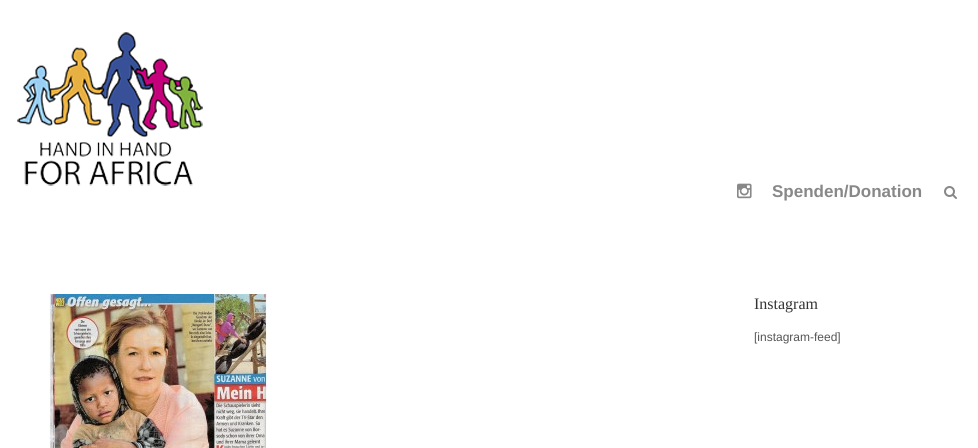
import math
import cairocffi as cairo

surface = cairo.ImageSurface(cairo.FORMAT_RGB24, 978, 448)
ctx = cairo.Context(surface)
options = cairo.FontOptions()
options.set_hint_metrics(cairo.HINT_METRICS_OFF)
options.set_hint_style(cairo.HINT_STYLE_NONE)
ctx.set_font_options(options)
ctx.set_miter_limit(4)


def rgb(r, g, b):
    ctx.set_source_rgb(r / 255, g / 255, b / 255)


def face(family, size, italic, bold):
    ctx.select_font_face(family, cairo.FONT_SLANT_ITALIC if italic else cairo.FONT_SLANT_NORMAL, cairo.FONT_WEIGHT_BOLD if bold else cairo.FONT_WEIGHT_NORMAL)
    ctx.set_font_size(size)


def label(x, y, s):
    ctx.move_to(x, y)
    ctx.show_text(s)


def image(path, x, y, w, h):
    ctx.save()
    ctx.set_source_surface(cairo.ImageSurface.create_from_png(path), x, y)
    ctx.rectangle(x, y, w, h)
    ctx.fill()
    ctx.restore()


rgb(255, 255, 255)
ctx.paint()
image('image0.png', 17, 32, 186, 154)
image('image1.png', 737, 183, 15, 16)
face('Liberation Sans', 17, 0, 1)
rgb(136, 136, 136)
label(772, 197, 'Spenden/Donation')
image('image2.png', 944, 186, 13, 13)
image('image3.png', 49, 294, 218, 154)
face('Liberation Serif', 16, 0, 0)
rgb(51, 51, 51)
label(754, 309, 'Instagram')
face('Liberation Sans', 12, 0, 0)
rgb(85, 85, 85)
label(754, 341, '[instagram-feed]')
surface.write_to_png('render.png')
